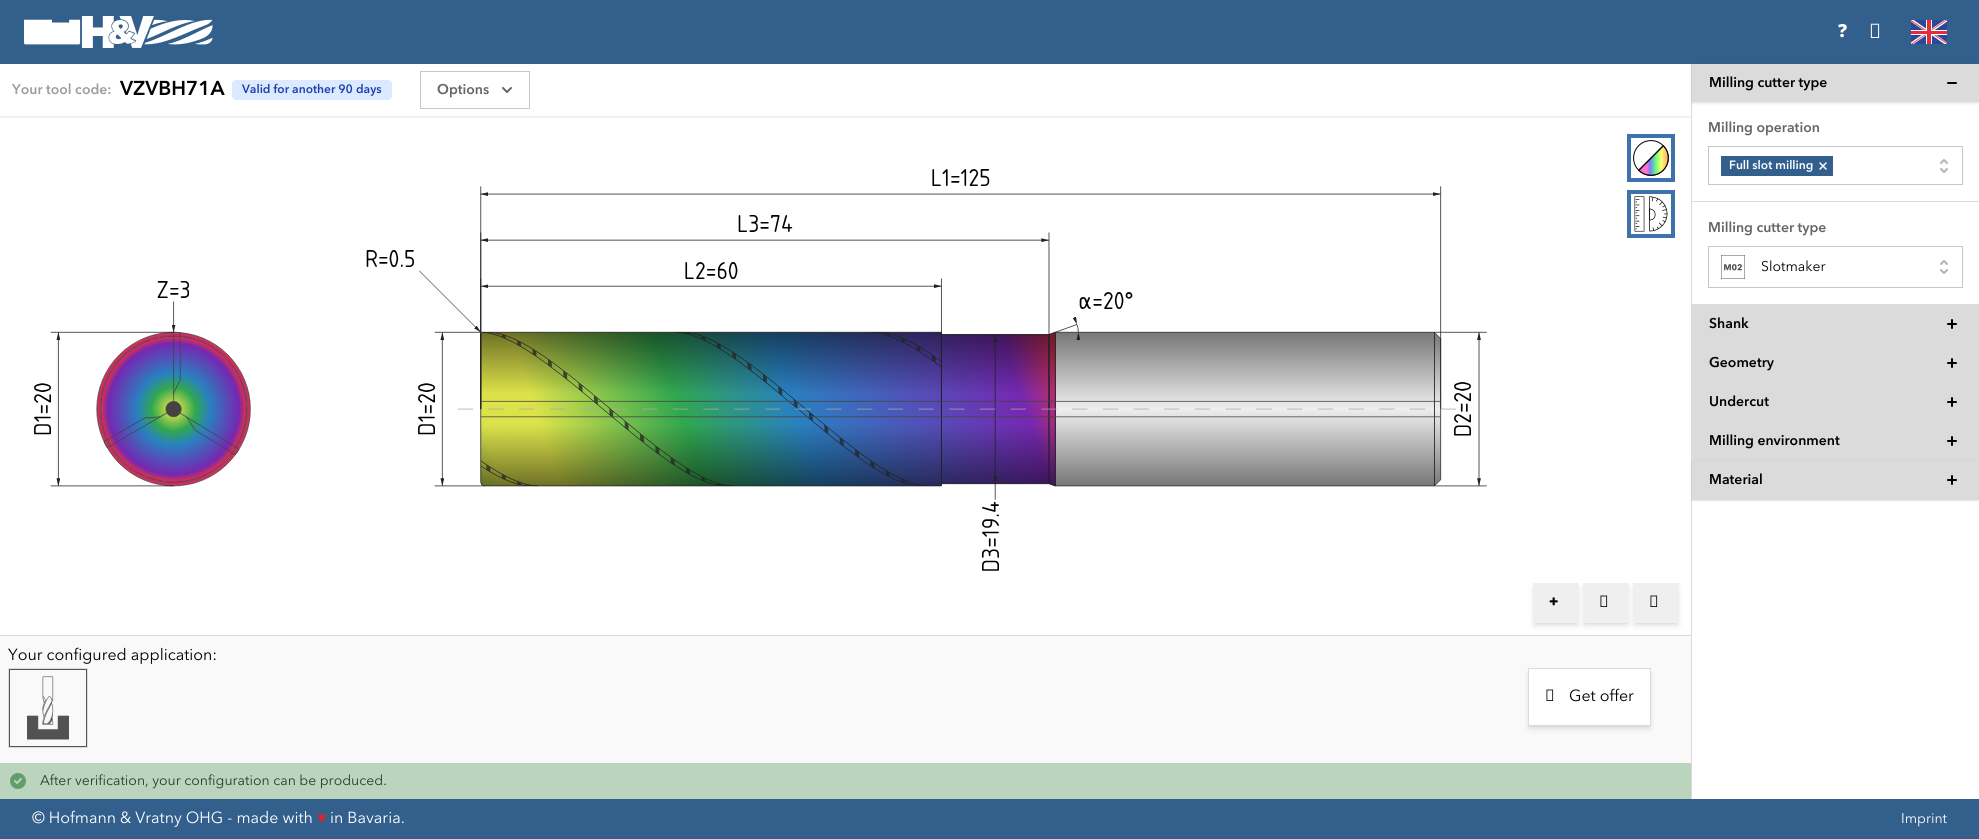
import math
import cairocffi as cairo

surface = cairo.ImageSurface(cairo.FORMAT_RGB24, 1979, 839)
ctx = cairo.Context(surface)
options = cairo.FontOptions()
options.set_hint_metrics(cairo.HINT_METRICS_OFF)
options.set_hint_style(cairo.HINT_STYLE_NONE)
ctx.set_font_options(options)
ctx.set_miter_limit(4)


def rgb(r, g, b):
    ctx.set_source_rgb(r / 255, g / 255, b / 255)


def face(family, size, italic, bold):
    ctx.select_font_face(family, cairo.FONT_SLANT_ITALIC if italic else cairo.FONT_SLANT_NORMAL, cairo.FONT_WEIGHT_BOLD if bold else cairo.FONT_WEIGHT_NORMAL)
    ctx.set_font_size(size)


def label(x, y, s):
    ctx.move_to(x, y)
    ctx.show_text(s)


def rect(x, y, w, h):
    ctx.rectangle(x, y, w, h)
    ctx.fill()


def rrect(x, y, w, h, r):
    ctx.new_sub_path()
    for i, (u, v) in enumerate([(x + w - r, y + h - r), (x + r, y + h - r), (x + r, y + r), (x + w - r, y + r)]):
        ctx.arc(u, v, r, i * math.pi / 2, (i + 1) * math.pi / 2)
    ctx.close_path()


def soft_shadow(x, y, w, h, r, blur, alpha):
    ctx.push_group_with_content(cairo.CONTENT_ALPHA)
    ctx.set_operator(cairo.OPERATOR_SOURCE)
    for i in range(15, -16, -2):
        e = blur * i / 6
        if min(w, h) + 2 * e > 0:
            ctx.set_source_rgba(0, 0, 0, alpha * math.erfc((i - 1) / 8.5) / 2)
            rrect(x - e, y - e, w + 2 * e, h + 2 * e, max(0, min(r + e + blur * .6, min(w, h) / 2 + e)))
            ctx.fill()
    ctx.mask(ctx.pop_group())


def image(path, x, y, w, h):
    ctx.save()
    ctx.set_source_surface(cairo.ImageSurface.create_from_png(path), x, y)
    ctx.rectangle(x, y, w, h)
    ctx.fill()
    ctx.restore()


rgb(255, 255, 255)
ctx.paint()
rgb(50, 95, 140)
rect(0, 0, 1979, 64)
image('image0.png', 24, 16, 189, 32)
face('Noto Sans Black', 18, 0, 0)
rgb(255, 255, 255)
label(1838, 37, '?')
image('image1.png', 1870, 23, 10, 15)
image('image2.png', 1911, 20, 36, 24)
ctx.save()
ctx.rectangle(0, 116, 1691, 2)
ctx.clip()
rgb(0, 0, 0)
soft_shadow(0, 65, 1691, 52, 0, 1.5, 0.1)
ctx.restore()
face('Avenir Next', 14, 0, 1)
rgb(158, 157, 157)
label(12, 94, 'Your tool code:')
face('Avenir Next', 20, 0, 1)
rgb(0, 0, 0)
label(120, 95, 'VZVBH71A')
rgb(219, 234, 254)
rrect(232, 80, 160, 20, 4)
ctx.fill()
face('Avenir Next', 12, 0, 1)
rgb(30, 64, 175)
label(242, 93, 'Valid for another 90 days')
ctx.rectangle(420.5, 71.5, 109, 37)
rgb(199, 198, 198)
ctx.set_line_width(1)
ctx.stroke()
face('Avenir Next', 14, 0, 1)
rgb(102, 101, 101)
label(437, 94, 'Options')
image('image3.png', 502, 87, 10, 6)
image('image4.png', 34, 169, 1453, 402)
ctx.rectangle(1629, 136, 44, 44)
rgb(61, 115, 170)
ctx.set_line_width(4)
ctx.stroke()
image('image5.png', 1633, 140, 36, 36)
ctx.rectangle(1629, 192, 44, 44)
ctx.stroke()
image('image6.png', 1634, 196, 34, 36)
rgb(0, 0, 0)
soft_shadow(1535, 587, 42, 36, 0, 2, 0.1)
rgb(219, 219, 219)
rect(0, 635, 1691, 1)
rgb(0, 0, 0)
soft_shadow(1534, 588, 44, 38, 0, 3, 0.1)
rgb(239, 239, 239)
rect(1533, 583, 46, 40)
face('Noto Sans Black', 16, 0, 0)
rgb(0, 0, 0)
label(1549, 607, '+')
rgb(0, 0, 0)
soft_shadow(1585, 587, 42, 36, 0, 2, 0.1)
soft_shadow(1584, 588, 44, 38, 0, 3, 0.1)
rgb(239, 239, 239)
rect(1583, 583, 46, 40)
image('image7.png', 1600, 595, 8, 12)
rgb(0, 0, 0)
soft_shadow(1635, 587, 42, 36, 0, 2, 0.1)
soft_shadow(1634, 588, 44, 38, 0, 3, 0.1)
rgb(239, 239, 239)
rect(1633, 583, 46, 40)
image('image7.png', 1650, 595, 8, 12)
rgb(249, 249, 249)
rect(0, 636, 1691, 127)
face('Avenir Next', 16, 0, 0)
rgb(0, 0, 0)
label(8, 660, 'Your configured application:')
image('image8.png', 9, 669, 78, 78)
ctx.rectangle(8.5, 668.5, 79, 79)
rgb(219, 219, 219)
ctx.set_line_width(1)
ctx.stroke()
rgb(0, 0, 0)
soft_shadow(1530, 672, 119, 54, 0, 2, 0.1)
soft_shadow(1529, 673, 121, 56, 0, 3, 0.1)
rgb(255, 255, 255)
ctx.rectangle(1528.5, 668.5, 122, 57)
ctx.fill_preserve()
rgb(219, 219, 219)
ctx.stroke()
image('image9.png', 1546, 689, 8, 12)
rgb(0, 0, 0)
label(1569, 701, 'Get offer')
rgb(186, 212, 189)
rect(0, 763, 1691, 36)
image('image10.png', 10, 773, 16, 16)
face('Avenir Next', 14, 0, 0)
rgb(39, 63, 42)
label(40, 785, 'After verification, your configuration can be produced.')
rgb(219, 219, 219)
rect(1691, 64, 1, 735)
ctx.save()
ctx.rectangle(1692, 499, 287, 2)
ctx.clip()
rgb(0, 0, 0)
soft_shadow(1692, 65, 287, 435, 0, 1.5, 0.1)
ctx.restore()
rgb(0, 0, 0)
soft_shadow(1693, 66, 285, 36, 0, 1, 0.1)
soft_shadow(1692, 65, 287, 38, 0, 1.5, 0.1)
rgb(219, 219, 219)
rect(1692, 64, 287, 38)
face('Avenir Next', 14, 0, 1)
rgb(0, 0, 0)
label(1709, 87, 'Milling cutter type')
image('image11.png', 1947, 82, 10, 2)
rgb(102, 101, 101)
label(1708, 132, 'Milling operation')
ctx.rectangle(1708.5, 146.5, 254, 38)
rgb(199, 198, 198)
ctx.stroke()
rgb(50, 95, 140)
rect(1721, 156, 112, 20)
face('Avenir Next', 12, 0, 1)
rgb(255, 255, 255)
label(1729, 169, 'Full slot milling')
ctx.new_path()
ctx.move_to(1820, 163)
ctx.line_to(1826, 169)
ctx.move_to(1826, 163)
ctx.line_to(1820, 169)
ctx.set_line_width(1.5)
ctx.set_line_cap(cairo.LINE_CAP_ROUND)
ctx.stroke()
image('image12.png', 1940, 159, 8, 14)
rgb(219, 219, 219)
rect(1692, 201, 287, 1)
face('Avenir Next', 14, 0, 1)
rgb(102, 101, 101)
label(1708, 232, 'Milling cutter type')
ctx.rectangle(1708.5, 246.5, 254, 41)
rgb(199, 198, 198)
ctx.set_line_width(1)
ctx.set_line_cap(cairo.LINE_CAP_BUTT)
ctx.stroke()
image('image13.png', 1721, 255, 24, 24)
face('Avenir Next', 14, 0, 0)
rgb(0, 0, 0)
label(1761, 271, 'Slotmaker')
image('image12.png', 1940, 260, 8, 14)
rgb(219, 219, 219)
rect(1692, 304, 287, 157)
face('Avenir Next', 14, 0, 1)
rgb(0, 0, 0)
label(1709, 328, 'Shank')
image('image14.png', 1947, 319, 10, 10)
label(1709, 367, 'Geometry')
image('image14.png', 1947, 358, 10, 10)
label(1709, 406, 'Undercut')
image('image14.png', 1947, 397, 10, 10)
label(1709, 445, 'Milling environment')
image('image14.png', 1947, 436, 10, 10)
rgb(0, 0, 0)
soft_shadow(1693, 463, 285, 36, 0, 1, 0.1)
soft_shadow(1692, 462, 287, 38, 0, 1.5, 0.1)
rgb(219, 219, 219)
rect(1692, 461, 287, 38)
rgb(0, 0, 0)
label(1709, 484, 'Material')
image('image14.png', 1947, 475, 10, 10)
rgb(50, 95, 140)
rect(0, 799, 1979, 40)
face('Avenir Next', 16, 0, 0)
rgb(255, 255, 255)
label(32, 823, '© Hofmann & Vratny OHG - made with')
face('Liberation Serif', 16, 0, 0)
rgb(214, 38, 49)
label(317, 823, '♥')
face('Avenir Next', 16, 0, 0)
rgb(255, 255, 255)
label(330, 823, 'in Bavaria.')
face('Avenir Next', 14, 0, 0)
label(1901, 823, 'Imprint')
surface.write_to_png('render.png')
